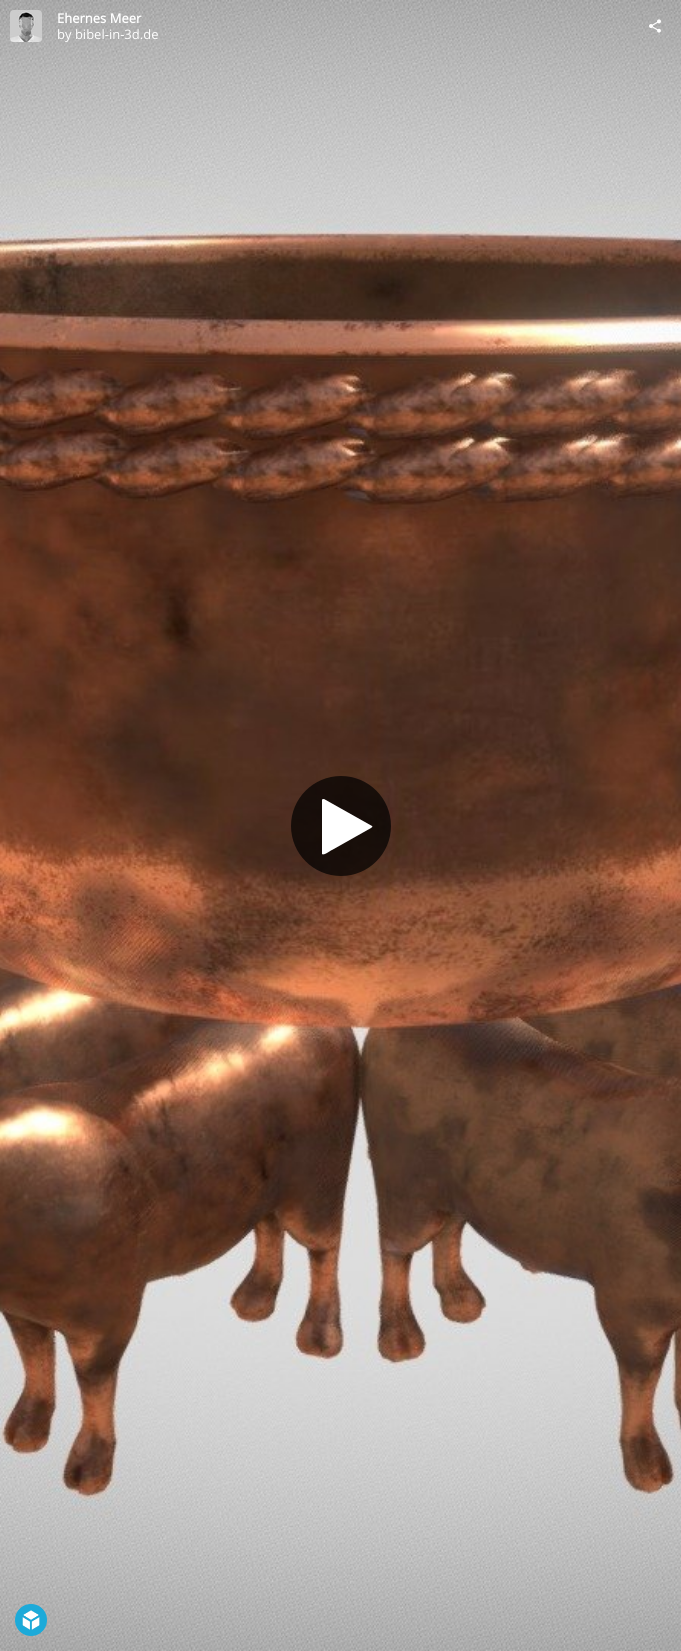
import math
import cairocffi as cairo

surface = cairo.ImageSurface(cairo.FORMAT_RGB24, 681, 1651)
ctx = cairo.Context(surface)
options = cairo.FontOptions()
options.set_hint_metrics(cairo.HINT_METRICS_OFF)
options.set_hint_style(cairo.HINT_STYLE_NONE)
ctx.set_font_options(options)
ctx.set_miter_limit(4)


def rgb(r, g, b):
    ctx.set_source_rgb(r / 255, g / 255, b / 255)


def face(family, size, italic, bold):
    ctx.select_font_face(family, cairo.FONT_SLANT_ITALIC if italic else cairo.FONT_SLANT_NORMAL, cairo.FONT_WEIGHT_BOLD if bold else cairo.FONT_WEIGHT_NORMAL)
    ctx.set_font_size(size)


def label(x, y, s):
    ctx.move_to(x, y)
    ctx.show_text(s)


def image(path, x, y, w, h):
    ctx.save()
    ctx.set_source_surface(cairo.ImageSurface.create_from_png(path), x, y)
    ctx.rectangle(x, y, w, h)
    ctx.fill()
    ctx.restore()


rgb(255, 255, 255)
ctx.paint()
image('image0.png', 0, 0, 681, 1651)
ctx.set_source_rgba(0, 0, 0, 0.7)
ctx.arc(341, 826, 50, 0, 2 * math.pi)
ctx.fill()
rgb(255, 255, 255)
ctx.new_path()
ctx.move_to(371, 828)
ctx.line_to(332, 850)
ctx.curve_to(331, 850, 324, 856, 322, 854)
ctx.line_to(322, 800)
ctx.curve_to(322, 799, 323, 799, 324, 799)
ctx.line_to(372, 826)
ctx.curve_to(373, 827, 372, 827, 371, 828)
ctx.close_path()
ctx.fill()
image('image1.png', 15, 1604, 32, 32)
image('image2.png', 10, 10, 32, 32)
face('Open Sans', 13, 0, 1)
label(57, 23, 'Ehernes Meer')
face('Open Sans', 13, 0, 0)
label(57, 39, 'by bibel-in-3d.de')
image('image3.png', 649, 19, 12, 14)
surface.write_to_png('render.png')
